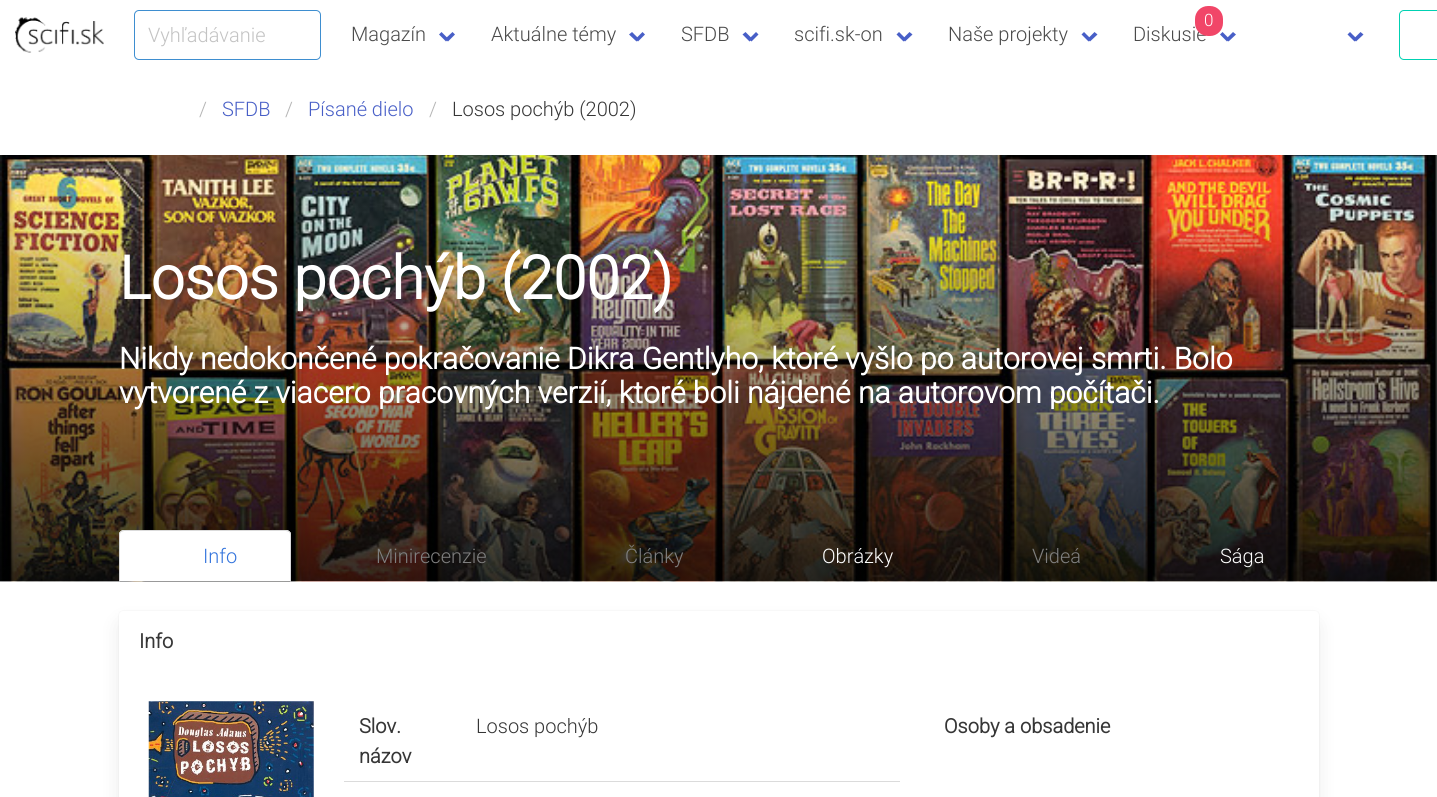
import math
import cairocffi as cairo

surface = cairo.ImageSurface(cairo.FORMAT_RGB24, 1437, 797)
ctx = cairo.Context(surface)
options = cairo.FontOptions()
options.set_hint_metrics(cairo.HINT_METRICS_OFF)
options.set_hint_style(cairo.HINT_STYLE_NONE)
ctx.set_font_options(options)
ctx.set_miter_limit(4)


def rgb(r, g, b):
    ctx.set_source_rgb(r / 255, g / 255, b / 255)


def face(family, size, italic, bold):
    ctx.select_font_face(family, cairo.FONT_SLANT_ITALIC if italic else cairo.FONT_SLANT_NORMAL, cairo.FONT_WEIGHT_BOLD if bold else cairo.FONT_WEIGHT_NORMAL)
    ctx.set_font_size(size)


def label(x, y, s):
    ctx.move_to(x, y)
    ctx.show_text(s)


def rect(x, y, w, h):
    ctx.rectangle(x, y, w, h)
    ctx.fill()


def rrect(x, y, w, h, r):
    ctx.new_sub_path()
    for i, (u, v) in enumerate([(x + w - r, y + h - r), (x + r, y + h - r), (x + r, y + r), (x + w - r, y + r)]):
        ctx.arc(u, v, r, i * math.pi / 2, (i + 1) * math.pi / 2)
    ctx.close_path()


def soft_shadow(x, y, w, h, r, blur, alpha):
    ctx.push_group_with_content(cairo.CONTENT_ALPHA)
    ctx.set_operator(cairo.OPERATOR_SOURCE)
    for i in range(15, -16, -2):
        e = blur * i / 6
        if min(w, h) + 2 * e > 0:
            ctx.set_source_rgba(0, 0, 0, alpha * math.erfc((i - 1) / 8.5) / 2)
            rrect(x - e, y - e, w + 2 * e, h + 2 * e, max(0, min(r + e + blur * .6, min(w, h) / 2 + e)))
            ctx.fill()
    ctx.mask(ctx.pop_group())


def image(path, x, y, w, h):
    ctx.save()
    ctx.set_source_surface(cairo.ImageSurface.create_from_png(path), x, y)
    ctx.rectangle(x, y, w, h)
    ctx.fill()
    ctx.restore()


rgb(255, 255, 255)
ctx.paint()
image('image0.png', 15, 17, 89, 36)
rrect(134.5, 10.5, 186, 49, 4.5)
rgb(62, 142, 208)
ctx.set_line_width(1)
ctx.stroke()
face('Roboto Light', 20, 0, 0)
rgb(195, 195, 195)
label(148, 42, 'Vyhľadávanie')
rgb(74, 74, 74)
label(351, 41, 'Magazín')
rgb(72, 95, 199)
ctx.new_path()
ctx.move_to(445, 39)
ctx.line_to(452.5, 32)
ctx.line_to(455, 34.5)
ctx.line_to(448, 41.5)
ctx.close_path()
ctx.fill()
ctx.new_path()
ctx.move_to(439, 34.5)
ctx.line_to(441.5, 32)
ctx.line_to(448.5, 39)
ctx.line_to(446, 41.5)
ctx.close_path()
ctx.fill()
rgb(74, 74, 74)
label(491, 41, 'Aktuálne témy')
rgb(72, 95, 199)
ctx.new_path()
ctx.move_to(635.5, 39)
ctx.line_to(642.5, 32)
ctx.line_to(645, 34.5)
ctx.line_to(638, 41.5)
ctx.close_path()
ctx.fill()
ctx.new_path()
ctx.move_to(629, 34.5)
ctx.line_to(632, 32)
ctx.line_to(639, 39)
ctx.line_to(636.5, 41.5)
ctx.close_path()
ctx.fill()
rgb(74, 74, 74)
label(681, 41, 'SFDB')
rgb(72, 95, 199)
ctx.new_path()
ctx.move_to(749, 39)
ctx.line_to(756, 32)
ctx.line_to(758.5, 34.5)
ctx.line_to(751.5, 41.5)
ctx.close_path()
ctx.fill()
ctx.new_path()
ctx.move_to(742.5, 34.5)
ctx.line_to(745.5, 32)
ctx.line_to(752.5, 39)
ctx.line_to(749.5, 41.5)
ctx.close_path()
ctx.fill()
rgb(74, 74, 74)
label(794, 41, 'scifi.sk-on')
rgb(72, 95, 199)
ctx.new_path()
ctx.move_to(902.5, 39)
ctx.line_to(909.5, 32)
ctx.line_to(912.5, 34.5)
ctx.line_to(905, 41.5)
ctx.close_path()
ctx.fill()
ctx.new_path()
ctx.move_to(896.5, 34.5)
ctx.line_to(899, 32)
ctx.line_to(906, 39)
ctx.line_to(903.5, 41.5)
ctx.close_path()
ctx.fill()
rgb(74, 74, 74)
label(948, 41, 'Naše projekty')
rgb(72, 95, 199)
ctx.new_path()
ctx.move_to(1087.5, 39)
ctx.line_to(1094.5, 32)
ctx.line_to(1097.5, 34.5)
ctx.line_to(1090, 41.5)
ctx.close_path()
ctx.fill()
ctx.new_path()
ctx.move_to(1081.5, 34.5)
ctx.line_to(1084, 32)
ctx.line_to(1091, 39)
ctx.line_to(1088.5, 41.5)
ctx.close_path()
ctx.fill()
rgb(74, 74, 74)
label(1133, 41, 'Diskusie')
rgb(241, 70, 104)
rrect(1195, 6, 28, 30, 13)
ctx.fill()
face('Roboto Light', 17, 0, 0)
rgb(255, 255, 255)
label(1204, 26, '0')
rgb(72, 95, 199)
ctx.new_path()
ctx.move_to(1226, 39)
ctx.line_to(1233, 32)
ctx.line_to(1236, 34.5)
ctx.line_to(1228.5, 41.5)
ctx.close_path()
ctx.fill()
ctx.new_path()
ctx.move_to(1220, 34.5)
ctx.line_to(1222.5, 32)
ctx.line_to(1229.5, 39)
ctx.line_to(1227, 41.5)
ctx.close_path()
ctx.fill()
ctx.new_path()
ctx.move_to(1353.5, 39)
ctx.line_to(1360.5, 32)
ctx.line_to(1363.5, 34.5)
ctx.line_to(1356, 41.5)
ctx.close_path()
ctx.fill()
ctx.new_path()
ctx.move_to(1347.5, 34.5)
ctx.line_to(1350, 32)
ctx.line_to(1357, 39)
ctx.line_to(1354.5, 41.5)
ctx.close_path()
ctx.fill()
rrect(1399.5, 10.5, 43, 49, 4.5)
rgb(0, 209, 178)
ctx.stroke()
face('Roboto Light', 20, 0, 0)
rgb(181, 181, 181)
label(199, 116, '/')
rgb(72, 95, 199)
label(222, 116, 'SFDB')
rgb(181, 181, 181)
label(285, 116, '/')
rgb(72, 95, 199)
label(308, 116, 'Písané dielo')
rgb(181, 181, 181)
label(429, 116, '/')
rgb(54, 54, 54)
label(452, 116, 'Losos pochýb (2002)')
image('image1.png', 0, 155, 1437, 427)
face('Roboto', 60, 0, 1)
rgb(255, 255, 255)
label(119, 299, 'Losos pochýb (2002)')
face('Roboto', 30, 0, 1)
label(119, 369, 'Nikdy nedokončené pokračovanie Dikra Gentlyho, ktoré vyšlo po autorovej smrti. Bolo')
label(119, 403, 'vytvorené z viacero pracovných verzií, ktoré boli nájdené na autorovom počítači.')
ctx.new_path()
ctx.move_to(124, 530)
ctx.line_to(286, 530)
ctx.curve_to(289, 530, 291, 532, 291, 535)
ctx.line_to(291, 581)
ctx.line_to(119, 581)
ctx.line_to(119, 535)
ctx.curve_to(119, 532, 121, 530, 124, 530)
ctx.close_path()
ctx.fill()
rgb(219, 219, 219)
ctx.new_path()
ctx.move_to(124, 530)
ctx.curve_to(122, 530, 121, 531, 120, 532)
ctx.line_to(121, 532)
ctx.line_to(124, 531)
ctx.line_to(286, 531)
ctx.line_to(289, 532)
ctx.line_to(290, 532)
ctx.curve_to(289, 531, 288, 530, 286, 530)
ctx.close_path()
ctx.fill()
ctx.new_path()
ctx.move_to(290, 532)
ctx.curve_to(291, 532, 291, 534, 291, 535)
ctx.line_to(291, 582)
ctx.line_to(290, 581)
ctx.line_to(290, 535)
ctx.curve_to(290, 534, 290, 533, 289, 532)
ctx.close_path()
ctx.fill()
ctx.new_path()
ctx.move_to(120, 532)
ctx.curve_to(119, 532, 119, 534, 119, 535)
ctx.line_to(119, 582)
ctx.line_to(120, 581)
ctx.line_to(120, 535)
ctx.curve_to(120, 534, 120, 533, 121, 532)
ctx.close_path()
ctx.fill()
face('Roboto Light', 20, 0, 0)
rgb(50, 115, 220)
label(203, 563, 'Info')
rgb(128, 128, 128)
label(376, 563, 'Minirecenzie')
label(625, 563, 'Články')
rgb(255, 255, 255)
label(822, 563, 'Obrázky')
rgb(128, 128, 128)
label(1032, 563, 'Videá')
rgb(255, 255, 255)
label(1220, 563, 'Sága')
rrect(118.5, 610.5, 1201, 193, 5.5)
rgb(250, 250, 250)
ctx.stroke()
rgb(10, 10, 10)
soft_shadow(121, 624, 1195, 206, 2.5, 10, 0.1)
rgb(255, 255, 255)
rrect(119, 611, 1200, 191, 5)
ctx.fill()
face('Roboto', 20, 0, 1)
rgb(54, 54, 54)
label(139, 648, 'Info')
image('image2.png', 148, 701, 166, 96)
label(359, 733, 'Slov.')
label(359, 763, 'názov')
rgb(219, 219, 219)
rect(344, 781, 556, 1)
face('Roboto Light', 20, 0, 0)
rgb(54, 54, 54)
label(476, 733, 'Losos pochýb')
face('Roboto', 20, 0, 1)
label(944, 733, 'Osoby a obsadenie')
surface.write_to_png('render.png')
